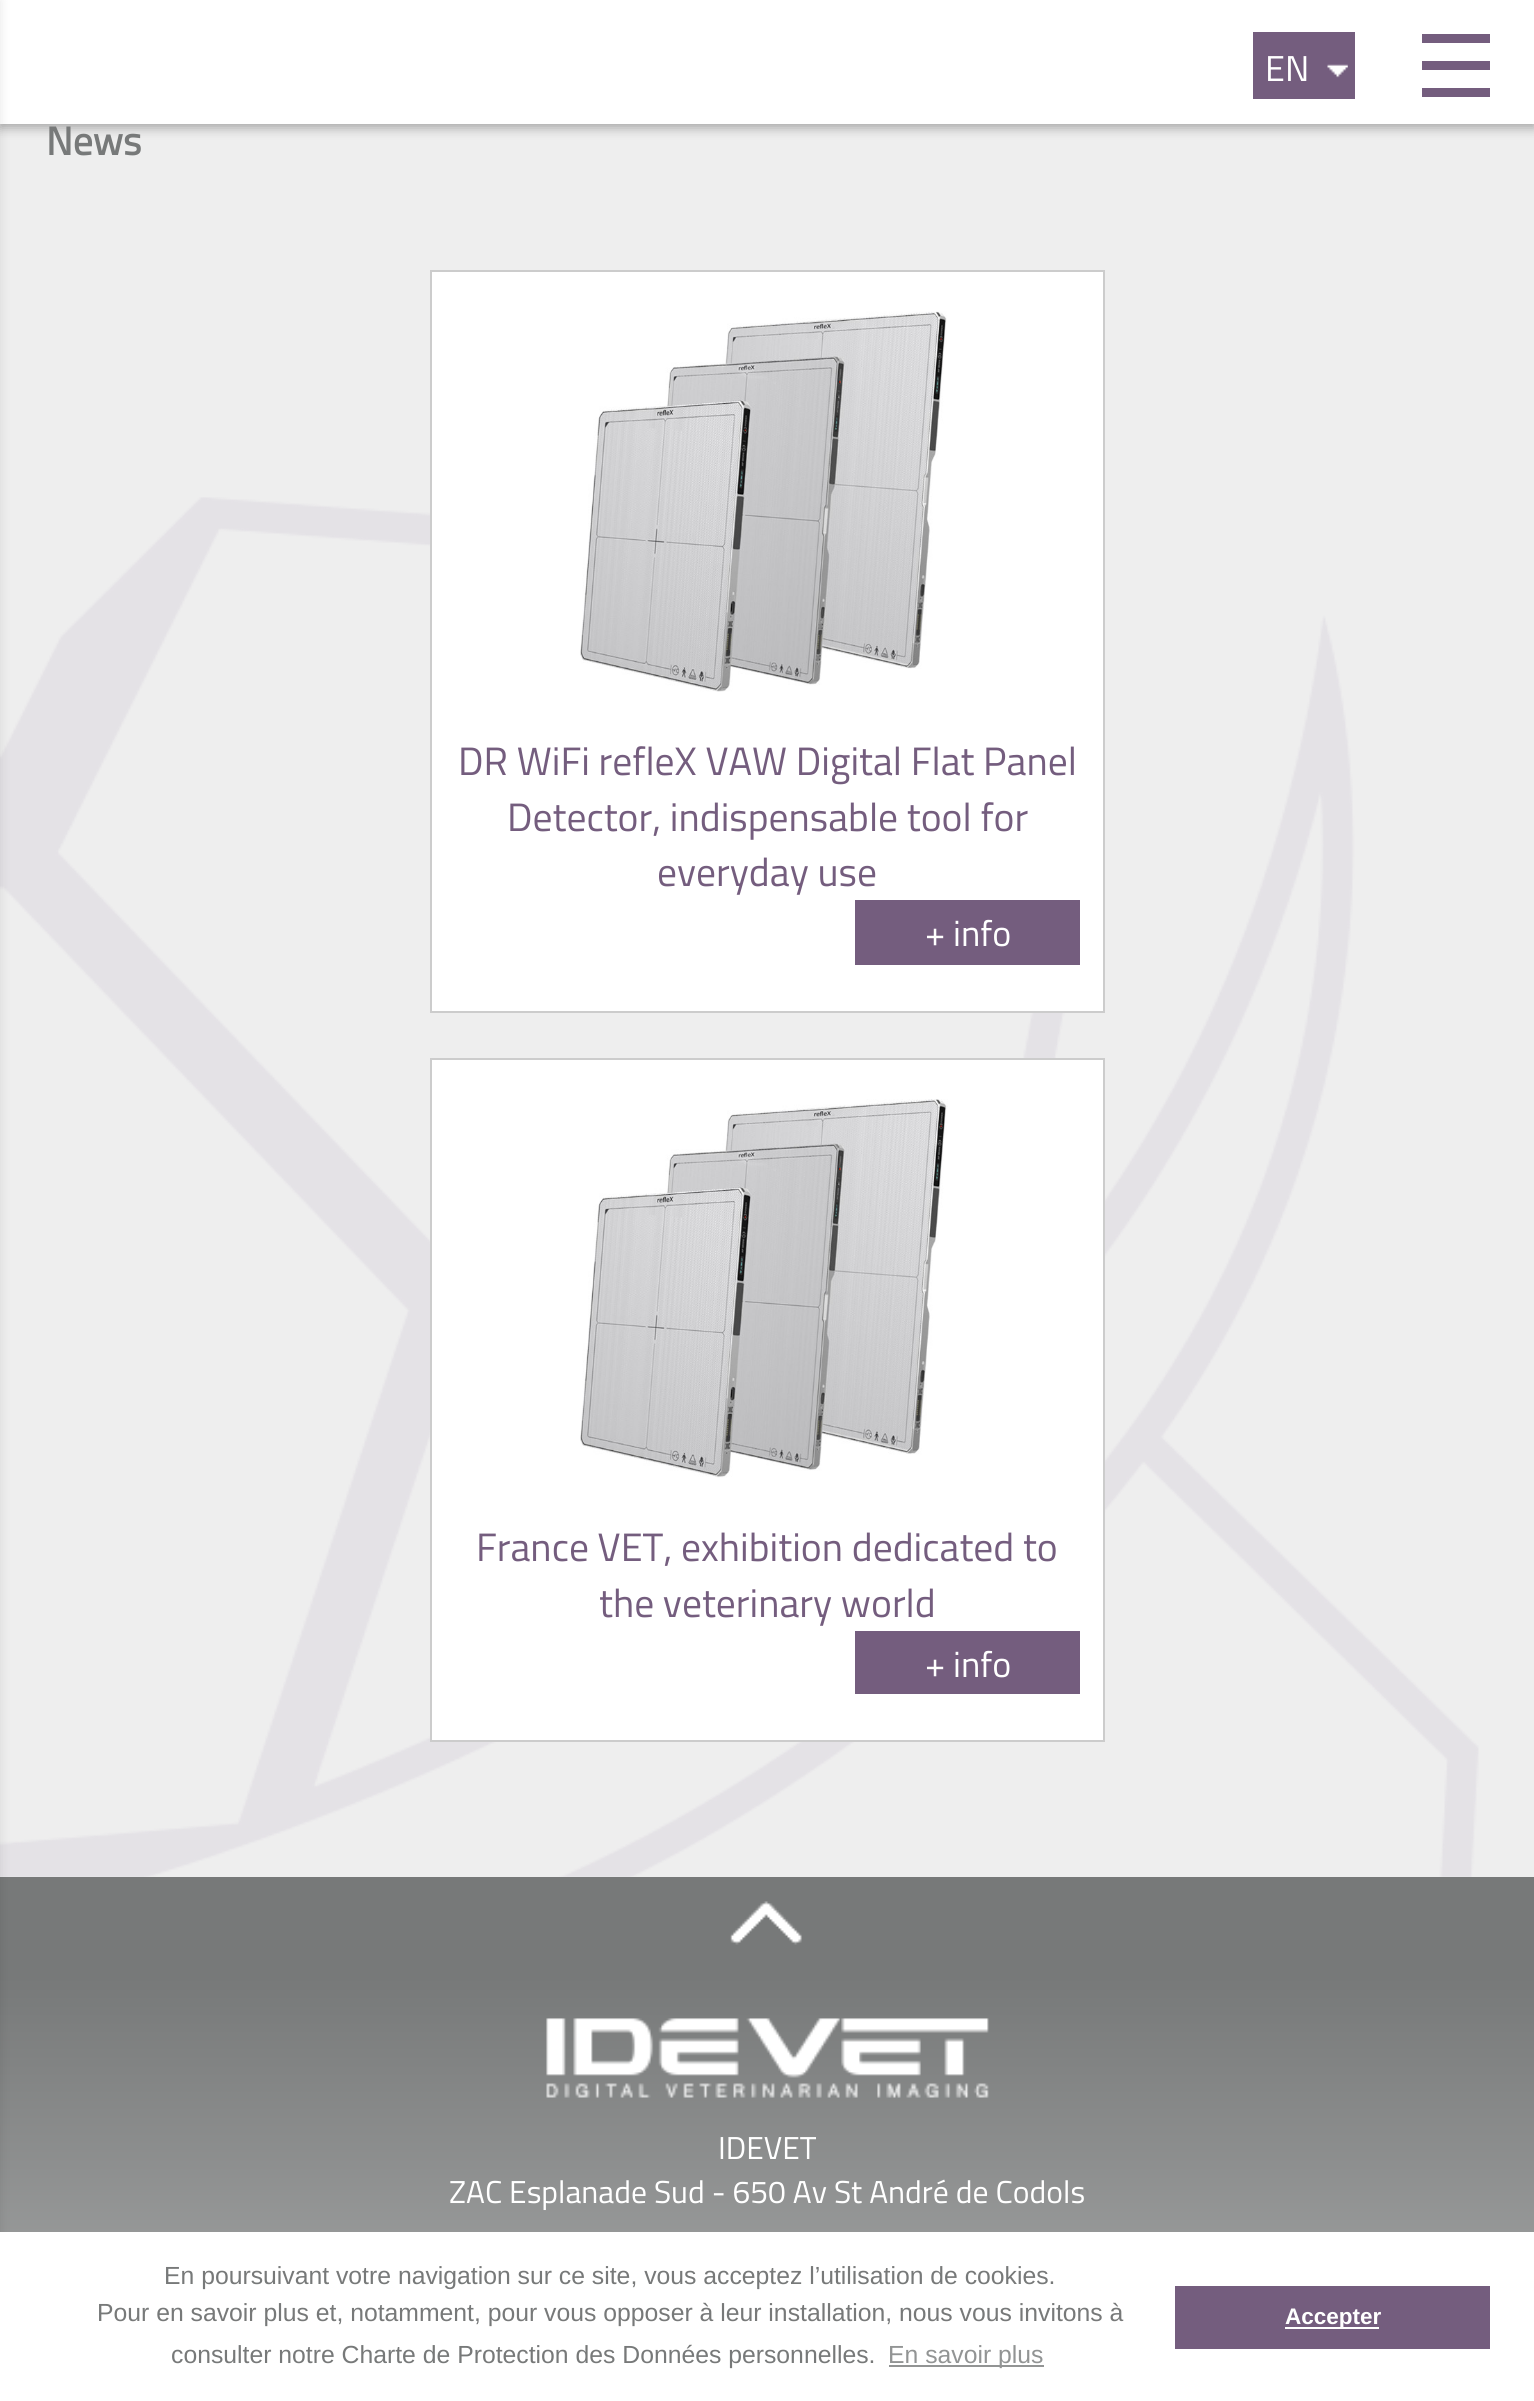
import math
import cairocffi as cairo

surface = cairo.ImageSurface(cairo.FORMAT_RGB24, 1534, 2401)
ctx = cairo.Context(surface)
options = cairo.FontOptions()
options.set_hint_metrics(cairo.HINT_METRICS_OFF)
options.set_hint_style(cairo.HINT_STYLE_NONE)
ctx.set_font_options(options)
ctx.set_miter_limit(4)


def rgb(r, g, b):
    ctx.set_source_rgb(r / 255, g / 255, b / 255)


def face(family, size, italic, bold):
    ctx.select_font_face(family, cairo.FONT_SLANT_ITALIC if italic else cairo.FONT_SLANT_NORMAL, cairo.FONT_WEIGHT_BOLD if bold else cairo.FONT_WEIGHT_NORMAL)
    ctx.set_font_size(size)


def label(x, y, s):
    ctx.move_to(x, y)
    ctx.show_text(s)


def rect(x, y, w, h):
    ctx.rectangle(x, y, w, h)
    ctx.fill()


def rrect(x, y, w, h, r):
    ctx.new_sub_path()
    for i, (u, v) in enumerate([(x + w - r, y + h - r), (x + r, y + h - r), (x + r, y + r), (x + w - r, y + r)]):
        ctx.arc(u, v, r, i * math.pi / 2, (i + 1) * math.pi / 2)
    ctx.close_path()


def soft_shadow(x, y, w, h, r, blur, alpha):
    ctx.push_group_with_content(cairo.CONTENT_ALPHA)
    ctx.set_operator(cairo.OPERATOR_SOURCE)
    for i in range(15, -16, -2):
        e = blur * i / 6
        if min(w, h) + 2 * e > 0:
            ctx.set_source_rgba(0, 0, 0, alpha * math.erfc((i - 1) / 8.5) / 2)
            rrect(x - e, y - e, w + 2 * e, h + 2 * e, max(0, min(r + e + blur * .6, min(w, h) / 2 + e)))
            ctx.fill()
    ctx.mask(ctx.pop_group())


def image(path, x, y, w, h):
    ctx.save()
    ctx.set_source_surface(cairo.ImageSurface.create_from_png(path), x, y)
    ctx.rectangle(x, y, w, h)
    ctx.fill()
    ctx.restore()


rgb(238, 238, 238)
ctx.paint()
rgb(0, 0, 0)
soft_shadow(0, 5, 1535, 123, 0, 5.5, 0.3)
rgb(255, 255, 255)
rect(0, 0, 1534, 124)
image('image1.png', 0, 497, 1479, 1380)
gradient = cairo.LinearGradient(767, 1877, 767, 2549)
gradient.add_color_stop_rgba(0.15, 0.467, 0.475, 0.475, 1)
gradient.add_color_stop_rgba(1, 0.733, 0.737, 0.737, 1)
ctx.set_source(gradient)
rect(0, 1877, 1534, 355)
rgb(0, 0, 0)
soft_shadow(-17, 0, 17, 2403, 0, 5.5, 0.1)
rgb(116, 93, 126)
rect(1422, 34, 68, 9)
rect(1422, 61, 68, 9)
rect(1422, 88, 68, 9)
rect(1253, 32, 102, 67)
face('Titillium Web', 36, 0, 0)
rgb(255, 255, 255)
label(1265, 81, 'EN')
image('image0.png', 1327, 64, 21, 14)
face('Titillium Web', 39.6, 0, 1)
rgb(119, 121, 121)
label(46, 155, 'News')
rgb(255, 255, 255)
ctx.rectangle(431, 271, 673, 741)
ctx.fill_preserve()
rgb(204, 204, 204)
ctx.stroke()
image('image2.png', 580, 311, 367, 381)
face('Titillium Web', 39.6, 0, 0)
rgb(116, 93, 126)
label(458, 775, 'DR WiFi refleX VAW Digital Flat Panel')
label(507, 831, 'Detector, indispensable tool for')
label(657, 886, 'everyday use')
rect(855, 900, 225, 65)
face('Titillium Web', 36, 0, 0)
rgb(255, 255, 255)
label(925, 946, '+ info')
ctx.rectangle(431, 1059, 673, 682)
ctx.fill_preserve()
rgb(204, 204, 204)
ctx.stroke()
image('image3.png', 580, 1099, 368, 379)
face('Titillium Web', 39.6, 0, 0)
rgb(116, 93, 126)
label(476, 1561, 'France VET, exhibition dedicated to')
label(599, 1617, 'the veterinary world')
rect(855, 1631, 225, 63)
face('Titillium Web', 36, 0, 0)
rgb(255, 255, 255)
label(925, 1677, '+ info')
image('image4.png', 730, 1901, 72, 44)
image('image5.png', 546, 2018, 443, 80)
face('Titillium Web', 31.7, 0, 0)
label(718, 2159, 'IDEVET')
label(449, 2203, 'ZAC Esplanade Sud - 650 Av St André de Codols')
rect(0, 2232, 1534, 169)
face('Liberation Sans', 24.75, 0, 0)
rgb(119, 121, 121)
label(164, 2284, 'En poursuivant votre navigation sur ce site, vous acceptez l’utilisation de cookies.')
label(97, 2321, 'Pour en savoir plus et, notamment, pour vous opposer à leur installation, nous vous invitons à')
label(171, 2363, 'consulter notre Charte de Protection des Données personnelles.')
rgb(146, 148, 148)
rect(889, 2365, 155, 2)
label(888, 2363, 'En savoir plus')
rgb(116, 93, 126)
rect(1175, 2286, 315, 63)
rgb(255, 255, 255)
rect(1285, 2327, 94, 2)
face('Liberation Sans', 22.5, 0, 1)
label(1285, 2324, 'Accepter')
surface.write_to_png('render.png')
